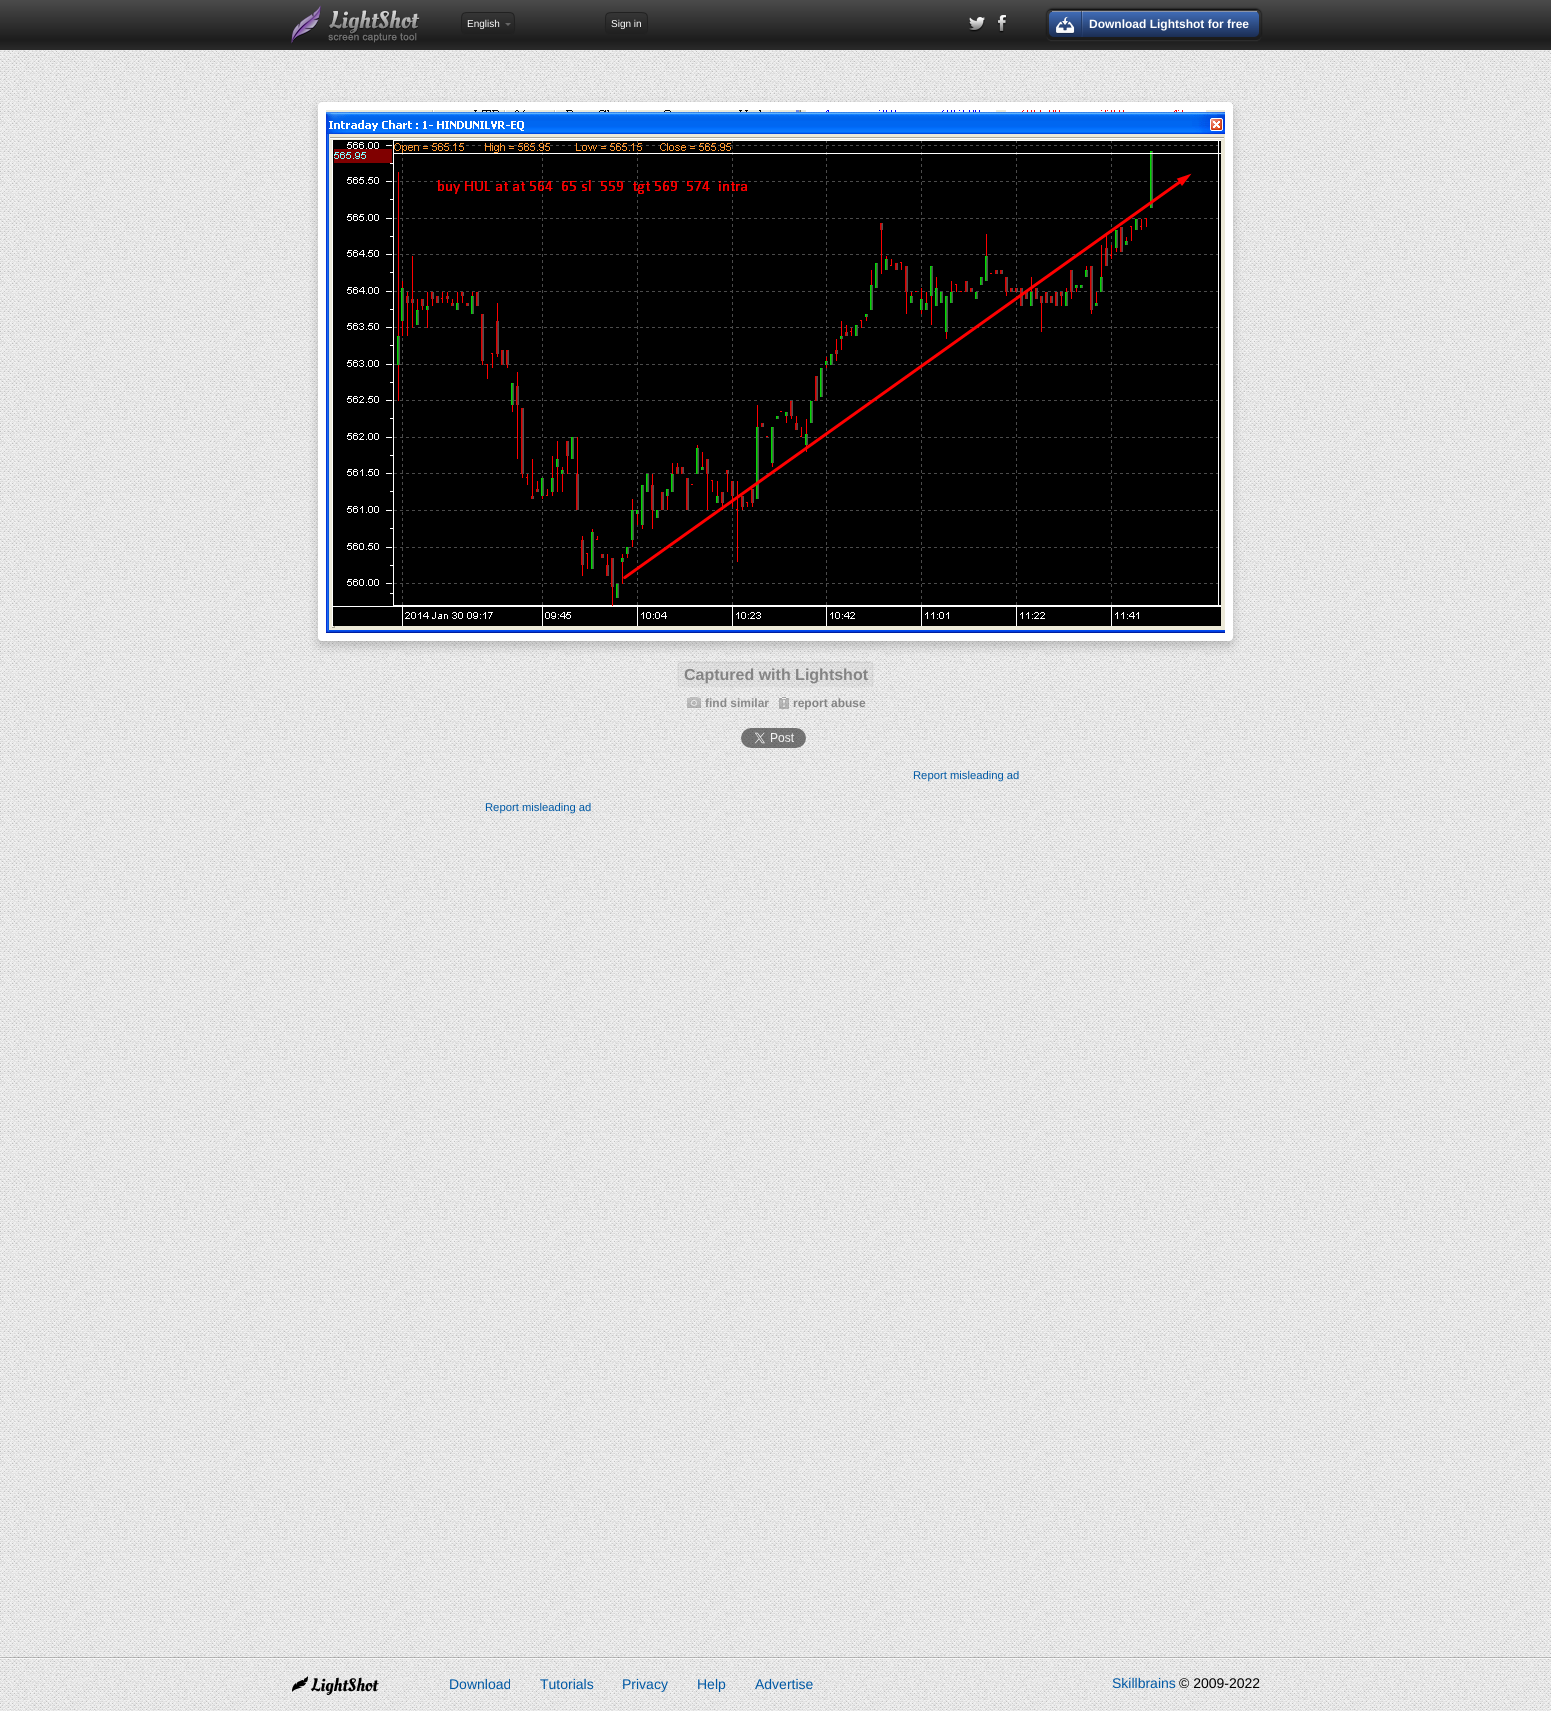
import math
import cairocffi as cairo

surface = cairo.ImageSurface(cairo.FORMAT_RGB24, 1551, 1711)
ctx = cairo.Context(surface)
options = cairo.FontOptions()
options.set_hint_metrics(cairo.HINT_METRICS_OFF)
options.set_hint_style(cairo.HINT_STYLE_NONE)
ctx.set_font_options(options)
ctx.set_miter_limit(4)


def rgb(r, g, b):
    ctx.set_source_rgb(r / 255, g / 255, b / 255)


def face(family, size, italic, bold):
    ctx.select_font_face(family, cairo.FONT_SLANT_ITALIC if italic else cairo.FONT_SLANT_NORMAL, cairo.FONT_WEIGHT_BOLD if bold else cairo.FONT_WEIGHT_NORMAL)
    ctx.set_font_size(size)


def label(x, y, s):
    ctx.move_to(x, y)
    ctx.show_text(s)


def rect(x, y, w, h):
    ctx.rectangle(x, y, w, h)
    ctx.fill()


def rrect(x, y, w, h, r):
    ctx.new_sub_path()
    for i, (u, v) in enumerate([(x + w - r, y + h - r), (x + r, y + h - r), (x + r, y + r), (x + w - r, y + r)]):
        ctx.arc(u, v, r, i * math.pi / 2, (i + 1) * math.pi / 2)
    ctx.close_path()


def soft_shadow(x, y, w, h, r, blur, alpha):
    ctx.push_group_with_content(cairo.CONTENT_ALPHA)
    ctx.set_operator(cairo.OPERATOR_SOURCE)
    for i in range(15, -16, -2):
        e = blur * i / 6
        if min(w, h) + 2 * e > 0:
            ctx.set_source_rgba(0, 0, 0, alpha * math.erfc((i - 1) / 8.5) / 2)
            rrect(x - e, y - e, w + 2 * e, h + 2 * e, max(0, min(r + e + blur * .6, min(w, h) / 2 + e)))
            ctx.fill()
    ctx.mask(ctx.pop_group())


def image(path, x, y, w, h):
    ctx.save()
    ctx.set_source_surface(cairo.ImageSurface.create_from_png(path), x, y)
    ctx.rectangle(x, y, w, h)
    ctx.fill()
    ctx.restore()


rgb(255, 255, 255)
ctx.paint()
image('image0.png', 0, 50, 1551, 1661)
gradient = cairo.LinearGradient(776, 0, 776, 50)
gradient.add_color_stop_rgba(0, 0.294, 0.294, 0.294, 1)
gradient.add_color_stop_rgba(0.8, 0.11, 0.11, 0.11, 1)
gradient.add_color_stop_rgba(1, 0.165, 0.165, 0.165, 1)
ctx.set_source(gradient)
rect(0, 0, 1551, 50)
image('image1.png', 291, 5, 129, 39)
ctx.set_source_rgba(0, 0, 0, 0.1)
rrect(461, 12, 54, 23, 5)
ctx.fill()
ctx.new_path()
ctx.move_to(513, 33)
ctx.curve_to(512.5, 34, 511, 34.5, 510, 34.5)
ctx.line_to(466, 34.5)
ctx.curve_to(465, 34.5, 463.5, 34, 463, 33)
rgb(34, 34, 34)
ctx.set_line_width(1)
ctx.stroke()
ctx.new_path()
ctx.move_to(463, 33)
ctx.curve_to(460.5, 31, 461.5, 26.5, 461.5, 23.5)
ctx.curve_to(461.5, 12, 461.5, 12.5, 473.5, 12.5)
ctx.line_to(502.5, 12.5)
ctx.curve_to(512.5, 12.5, 514.5, 11.5, 514.5, 21.5)
ctx.curve_to(514.5, 24.5, 515.5, 30.5, 513, 33)
rgb(33, 33, 33)
ctx.stroke()
face('Liberation Sans', 10, 0, 0)
rgb(255, 255, 255)
label(467, 27, 'English')
rgb(102, 102, 102)
ctx.new_path()
ctx.move_to(505, 23)
ctx.line_to(511, 23)
ctx.line_to(508, 26)
ctx.close_path()
ctx.fill()
ctx.set_source_rgba(0, 0, 0, 0.1)
rrect(605, 12, 43, 23, 5)
ctx.fill()
ctx.new_path()
ctx.move_to(646, 33)
ctx.curve_to(645.5, 34, 644, 34.5, 643, 34.5)
ctx.line_to(610, 34.5)
ctx.curve_to(609, 34.5, 607.5, 34, 607, 33)
rgb(34, 34, 34)
ctx.stroke()
ctx.new_path()
ctx.move_to(607, 33)
ctx.curve_to(604.5, 31, 605.5, 26.5, 605.5, 23.5)
ctx.curve_to(605.5, 13.5, 605, 12.5, 615.5, 12.5)
ctx.line_to(637.5, 12.5)
ctx.curve_to(648, 12.5, 647.5, 13.5, 647.5, 23.5)
ctx.curve_to(647.5, 26.5, 648.5, 31, 646, 33)
rgb(33, 33, 33)
ctx.stroke()
rgb(255, 255, 255)
label(611, 27, 'Sign in')
image('image2.png', 969, 17, 16, 15)
image('image3.png', 997, 15, 10, 18)
ctx.save()
ctx.set_fill_rule(cairo.FILL_RULE_EVEN_ODD)
ctx.new_path()
ctx.move_to(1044, 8)
ctx.line_to(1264, 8)
ctx.line_to(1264, 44)
ctx.line_to(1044, 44)
ctx.close_path()
ctx.move_to(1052, 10)
ctx.line_to(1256, 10)
ctx.curve_to(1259, 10, 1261, 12, 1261, 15)
ctx.line_to(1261, 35)
ctx.curve_to(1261, 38, 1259, 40, 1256, 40)
ctx.line_to(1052, 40)
ctx.curve_to(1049, 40, 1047, 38, 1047, 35)
ctx.line_to(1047, 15)
ctx.curve_to(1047, 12, 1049, 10, 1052, 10)
ctx.close_path()
ctx.clip()
rgb(255, 255, 255)
soft_shadow(1047, 11, 214, 30, 5, 0.5, 0.1)
ctx.restore()
ctx.save()
ctx.set_fill_rule(cairo.FILL_RULE_EVEN_ODD)
ctx.new_path()
ctx.move_to(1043, 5)
ctx.line_to(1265, 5)
ctx.line_to(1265, 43)
ctx.line_to(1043, 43)
ctx.close_path()
ctx.move_to(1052, 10)
ctx.line_to(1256, 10)
ctx.curve_to(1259, 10, 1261, 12, 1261, 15)
ctx.line_to(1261, 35)
ctx.curve_to(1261, 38, 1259, 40, 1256, 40)
ctx.line_to(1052, 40)
ctx.curve_to(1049, 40, 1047, 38, 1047, 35)
ctx.line_to(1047, 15)
ctx.curve_to(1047, 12, 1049, 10, 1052, 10)
ctx.close_path()
ctx.clip()
rgb(0, 0, 0)
soft_shadow(1047, 9, 214, 30, 5, 1, 0.99)
ctx.restore()
ctx.set_source_rgba(0, 0, 0, 0.11)
rrect(1047, 10, 214, 30, 5)
ctx.fill()
ctx.save()
rrect(1049, 11, 210, 26, 5)
ctx.clip()
gradient = cairo.LinearGradient(1154, -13, 1154, 12)
gradient.add_color_stop_rgba(0, 0.251, 0.424, 0.714, 1)
gradient.add_color_stop_rgba(1, 0.106, 0.176, 0.329, 1)
ctx.set_source(gradient)
rect(1049, 11, 210, 1)
gradient = cairo.LinearGradient(1154, 12, 1154, 37)
gradient.add_color_stop_rgba(0, 0.251, 0.427, 0.722, 0.98)
gradient.add_color_stop_rgba(1, 0.102, 0.176, 0.329, 0.98)
ctx.set_source(gradient)
ctx.new_path()
ctx.move_to(1049, 12)
ctx.line_to(1259, 12)
ctx.line_to(1259, 32)
ctx.curve_to(1259, 35, 1257, 37, 1254, 37)
ctx.line_to(1054, 37)
ctx.curve_to(1051, 37, 1049, 35, 1049, 32)
ctx.close_path()
ctx.fill()
ctx.restore()
ctx.set_source_rgba(0.984, 0.984, 0.984, 0.5)
rect(1052, 11, 205, 1)
image('image4.png', 1056, 16, 19, 18)
image('image5.png', 1081, 11, 2, 26)
face('Liberation Sans', 12, 0, 1)
rgb(255, 255, 255)
label(1089, 28, 'Download Lightshot for free')
rgb(0, 0, 0)
soft_shadow(318, 107, 915, 539, 4, 5, 0.2)
rgb(255, 255, 255)
rrect(318, 102, 915, 539, 4)
ctx.fill()
image('image6.png', 326, 110, 899, 523)
ctx.save()
ctx.set_fill_rule(cairo.FILL_RULE_EVEN_ODD)
ctx.new_path()
ctx.move_to(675, 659)
ctx.line_to(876, 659)
ctx.line_to(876, 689)
ctx.line_to(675, 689)
ctx.close_path()
ctx.move_to(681, 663)
ctx.line_to(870, 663)
ctx.curve_to(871.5, 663, 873, 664.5, 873, 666)
ctx.line_to(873, 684)
ctx.curve_to(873, 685.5, 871.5, 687, 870, 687)
ctx.line_to(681, 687)
ctx.curve_to(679.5, 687, 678, 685.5, 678, 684)
ctx.line_to(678, 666)
ctx.curve_to(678, 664.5, 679.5, 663, 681, 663)
ctx.close_path()
ctx.clip()
rgb(0, 0, 0)
soft_shadow(678, 662, 195, 24, 3, 0.5, 0.12)
ctx.restore()
ctx.set_source_rgba(0, 0, 0, 0.04)
rect(678, 663, 195, 24)
rect(872, 665, 1, 21)
rect(678, 665, 1, 21)
face('Liberation Sans', 16, 0, 1)
rgb(132, 132, 132)
label(684, 680, 'Captured with Lightshot')
image('image7.png', 687, 697, 14, 11)
face('Liberation Sans', 12, 0, 1)
rgb(138, 138, 138)
label(705, 707, 'find similar')
image('image8.png', 779, 697, 10, 12)
rgb(132, 132, 132)
label(793, 707, 'report abuse')
image('image9.png', 741, 728, 65, 20)
face('Liberation Sans', 11.25, 0, 0)
rgb(0, 89, 165)
label(913, 779, 'Report misleading ad')
label(485, 811, 'Report misleading ad')
ctx.set_source_rgba(0, 0, 0, 0.2)
rect(0, 1657, 1551, 1)
ctx.set_source_rgba(1, 1, 1, 0.6)
rect(0, 1658, 1551, 1)
image('image10.png', 292, 1676, 87, 19)
face('Liberation Sans', 14, 0, 0)
rgb(0, 89, 165)
label(449, 1689, 'Download')
label(540, 1689, 'Tutorials')
label(622, 1689, 'Privacy')
label(697, 1689, 'Help')
label(755, 1689, 'Advertise')
label(1112, 1688, 'Skillbrains')
rgb(0, 0, 0)
label(1179, 1688, '© 2009-2022')
surface.write_to_png('render.png')
